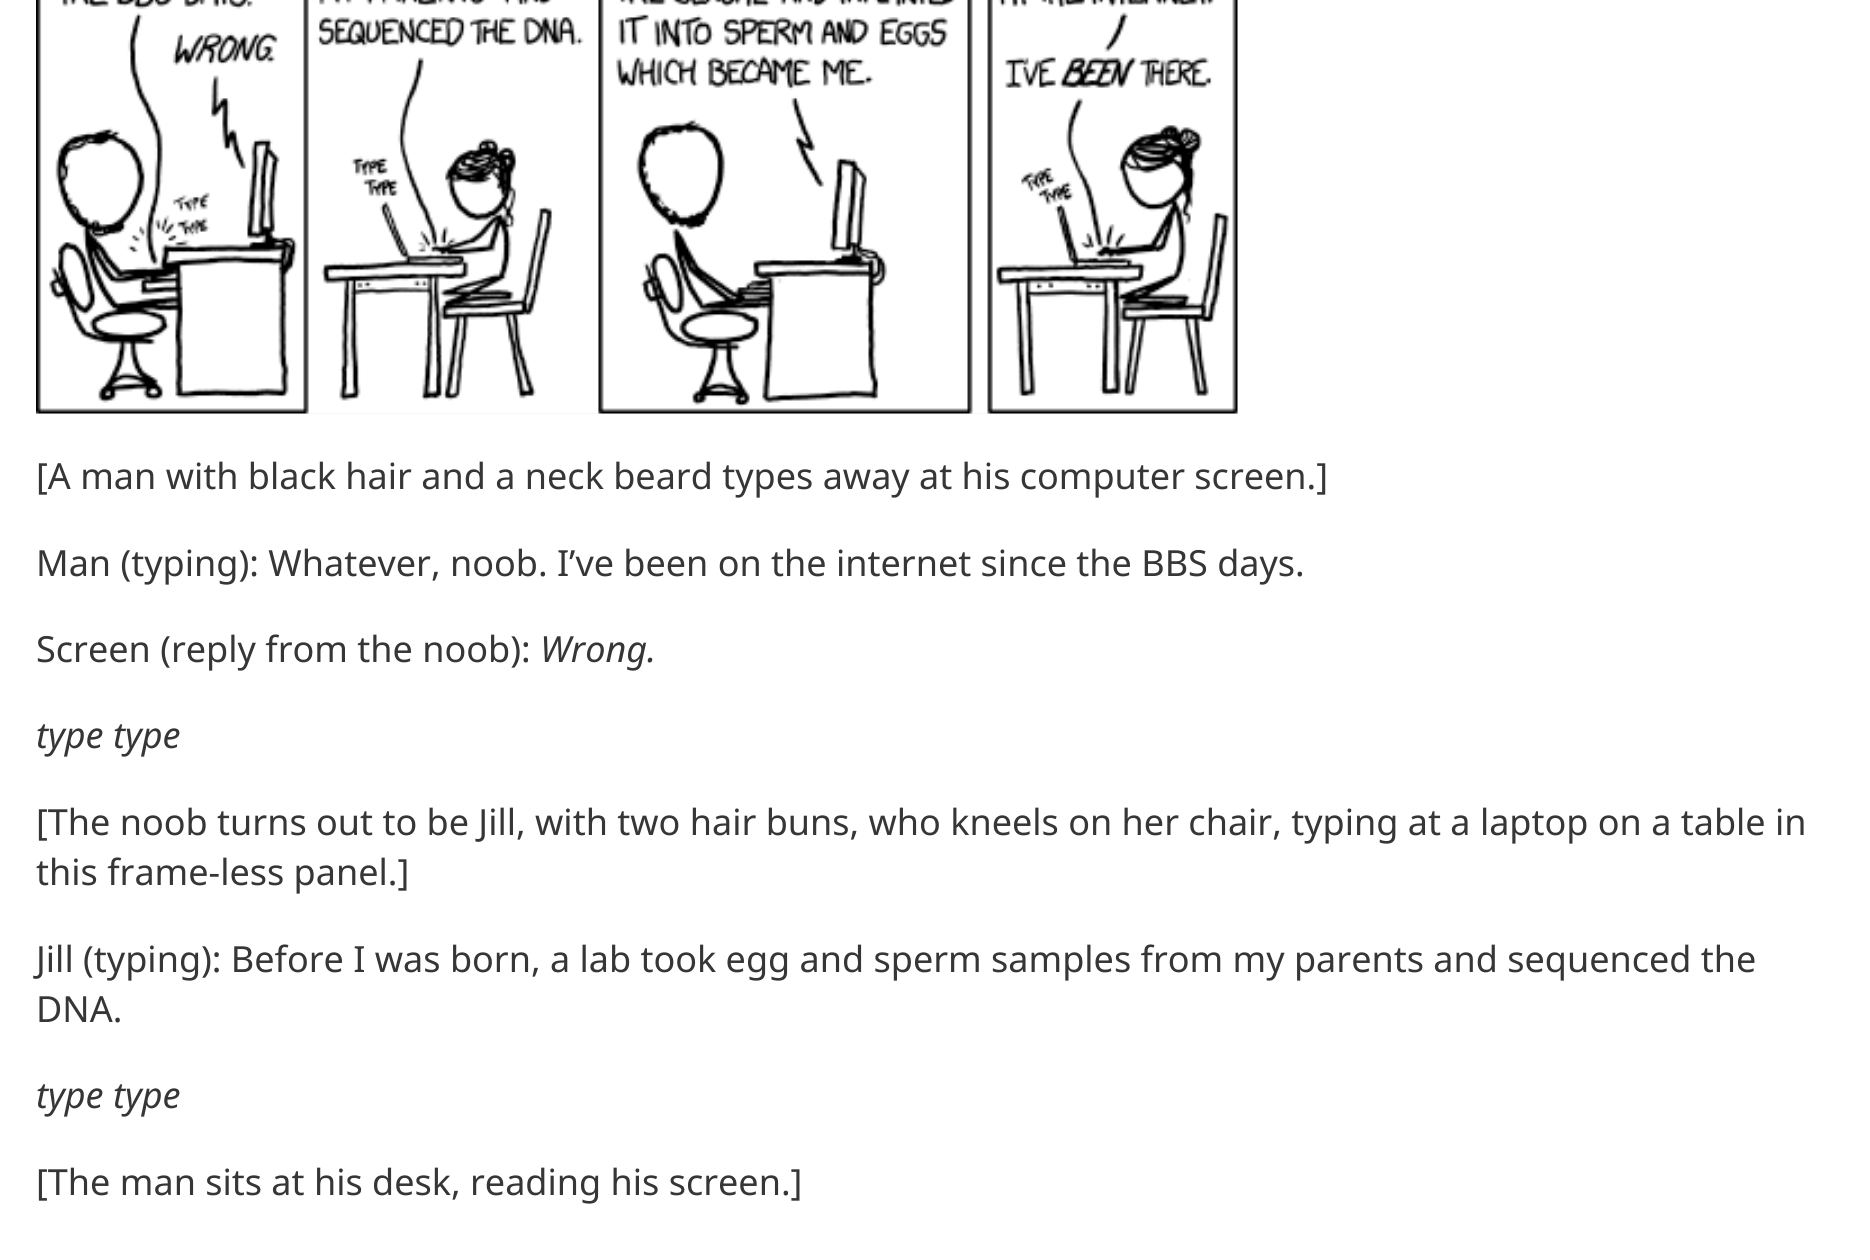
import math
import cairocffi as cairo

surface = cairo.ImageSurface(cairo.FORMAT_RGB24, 1870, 1260)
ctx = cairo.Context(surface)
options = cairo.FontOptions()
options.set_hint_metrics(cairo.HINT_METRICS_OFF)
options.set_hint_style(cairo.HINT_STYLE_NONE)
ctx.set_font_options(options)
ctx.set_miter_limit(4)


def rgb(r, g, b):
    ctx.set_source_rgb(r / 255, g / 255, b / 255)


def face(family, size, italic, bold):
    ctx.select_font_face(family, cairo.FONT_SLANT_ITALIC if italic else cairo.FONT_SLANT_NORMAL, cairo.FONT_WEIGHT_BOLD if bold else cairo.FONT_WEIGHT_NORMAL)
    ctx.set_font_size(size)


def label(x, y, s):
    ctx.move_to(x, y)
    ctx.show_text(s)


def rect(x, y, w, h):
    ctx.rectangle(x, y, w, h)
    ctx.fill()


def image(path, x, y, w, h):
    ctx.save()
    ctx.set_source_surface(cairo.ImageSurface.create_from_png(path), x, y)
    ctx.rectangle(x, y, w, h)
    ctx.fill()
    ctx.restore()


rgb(255, 255, 255)
ctx.paint()
rgb(239, 239, 239)
rect(36, 0, 1202, 414)
image('image0.png', 36, 0, 1202, 414)
face('Noto Sans', 36, 0, 0)
rgb(54, 54, 54)
label(36, 489, '[A man with black hair and a neck beard types away at his computer screen.]')
label(36, 576, 'Man (typing): Whatever, noob. I’ve been on the internet since the BBS days.')
label(36, 662, 'Screen (reply from the noob):')
face('Noto Sans', 36, 1, 0)
label(540, 662, 'Wrong.')
label(36, 748, 'type type')
face('Noto Sans', 36, 0, 0)
label(36, 835, '[The noob turns out to be Jill, with two hair buns, who kneels on her chair, typing at a laptop on a table in')
label(36, 885, 'this frame-less panel.]')
label(36, 972, 'Jill (typing): Before I was born, a lab took egg and sperm samples from my parents and sequenced the')
label(36, 1022, 'DNA.')
face('Noto Sans', 36, 1, 0)
label(36, 1108, 'type type')
face('Noto Sans', 36, 0, 0)
label(36, 1195, '[The man sits at his desk, reading his screen.]')
surface.write_to_png('render.png')
